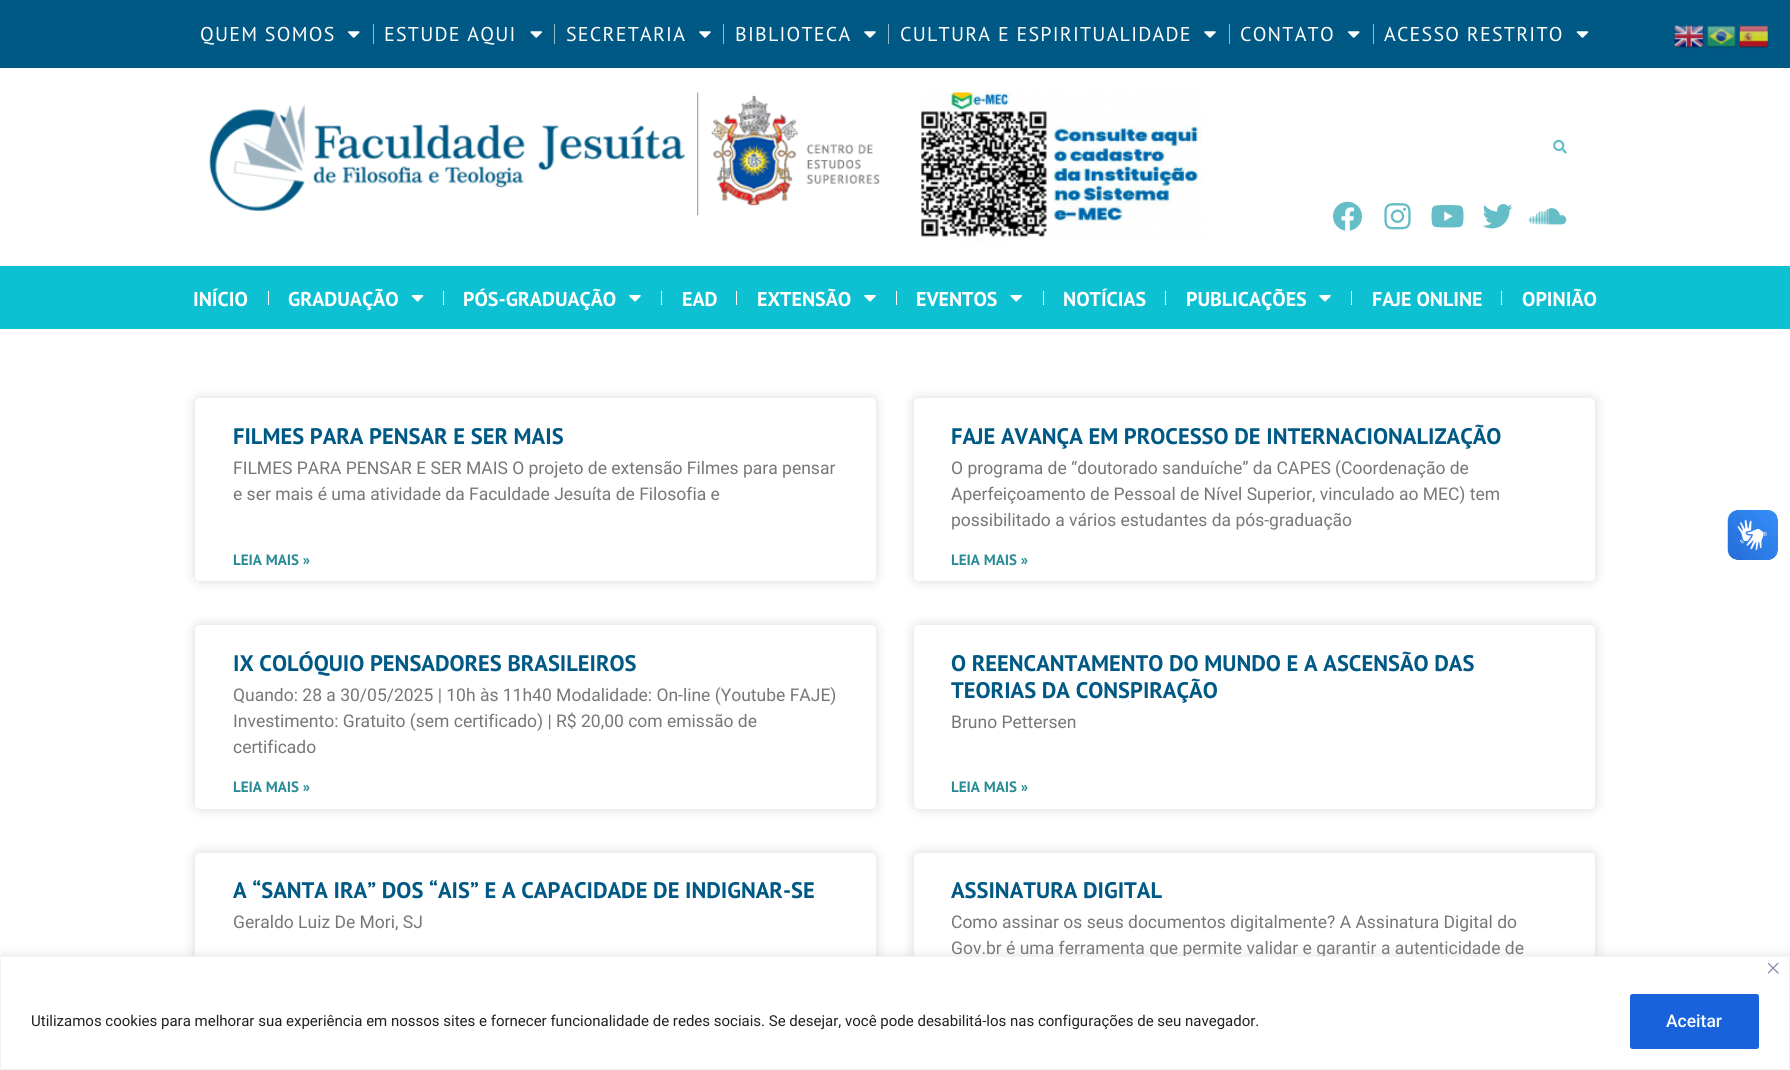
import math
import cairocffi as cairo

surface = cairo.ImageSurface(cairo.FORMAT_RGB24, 1790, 1070)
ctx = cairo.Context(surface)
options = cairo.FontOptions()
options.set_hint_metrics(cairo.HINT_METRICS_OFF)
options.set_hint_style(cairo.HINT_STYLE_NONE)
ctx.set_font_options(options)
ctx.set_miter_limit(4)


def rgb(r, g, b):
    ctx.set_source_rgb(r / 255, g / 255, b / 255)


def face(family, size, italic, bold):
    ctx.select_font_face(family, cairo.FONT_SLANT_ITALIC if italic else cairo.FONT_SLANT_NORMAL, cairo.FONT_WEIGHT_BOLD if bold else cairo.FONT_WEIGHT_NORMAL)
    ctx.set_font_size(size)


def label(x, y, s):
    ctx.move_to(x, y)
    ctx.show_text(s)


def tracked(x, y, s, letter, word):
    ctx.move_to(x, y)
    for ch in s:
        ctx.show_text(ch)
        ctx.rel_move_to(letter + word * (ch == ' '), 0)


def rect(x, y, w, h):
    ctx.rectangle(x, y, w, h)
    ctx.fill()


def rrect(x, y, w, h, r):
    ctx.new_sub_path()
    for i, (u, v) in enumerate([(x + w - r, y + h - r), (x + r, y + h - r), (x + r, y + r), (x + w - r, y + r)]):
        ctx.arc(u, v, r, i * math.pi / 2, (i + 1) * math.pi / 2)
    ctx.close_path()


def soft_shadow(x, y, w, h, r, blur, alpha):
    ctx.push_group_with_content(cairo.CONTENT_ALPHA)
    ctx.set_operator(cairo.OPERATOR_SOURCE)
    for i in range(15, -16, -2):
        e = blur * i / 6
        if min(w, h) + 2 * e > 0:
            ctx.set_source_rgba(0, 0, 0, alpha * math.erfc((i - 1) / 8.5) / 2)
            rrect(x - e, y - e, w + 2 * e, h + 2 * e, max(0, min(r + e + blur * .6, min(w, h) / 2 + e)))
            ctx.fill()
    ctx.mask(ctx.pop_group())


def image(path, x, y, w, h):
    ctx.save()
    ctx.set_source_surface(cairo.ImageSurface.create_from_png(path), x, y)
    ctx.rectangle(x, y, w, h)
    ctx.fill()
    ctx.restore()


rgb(255, 255, 255)
ctx.paint()
rgb(0, 89, 132)
rect(0, 0, 1790, 68)
face('PT Sans', 20, 0, 0)
rgb(255, 255, 255)
tracked(200, 41, 'QUEM SOMOS', 1.25, 0)
image('image0.png', 348, 31, 12, 7)
rgb(150, 187, 205)
rect(373, 24, 1, 20)
rgb(255, 255, 255)
tracked(384, 41, 'ESTUDE AQUI', 1.25, 0)
image('image1.png', 530, 31, 12, 7)
rgb(150, 187, 205)
rect(554, 24, 1, 20)
rgb(255, 255, 255)
tracked(566, 41, 'SECRETARIA', 1.25, 0)
image('image2.png', 699, 31, 12, 7)
rgb(150, 187, 205)
rect(723, 24, 1, 20)
rgb(255, 255, 255)
tracked(735, 41, 'BIBLIOTECA', 1.25, 0)
image('image2.png', 864, 31, 12, 7)
rgb(150, 187, 205)
rect(888, 24, 1, 20)
rgb(255, 255, 255)
tracked(900, 41, 'CULTURA E ESPIRITUALIDADE', 1.25, 0)
image('image2.png', 1204, 31, 12, 7)
rgb(150, 187, 205)
rect(1229, 24, 1, 20)
rgb(255, 255, 255)
tracked(1240, 41, 'CONTATO', 1.25, 0)
image('image0.png', 1348, 31, 12, 7)
rgb(150, 187, 205)
rect(1373, 24, 1, 20)
rgb(255, 255, 255)
tracked(1384, 41, 'ACESSO RESTRITO', 1.25, 0)
image('image3.png', 1576, 31, 13, 7)
image('image4.png', 209, 92, 671, 124)
image('image5.png', 921, 92, 282, 149)
image('image6.png', 1553, 139, 14, 15)
image('image7.png', 1333, 201, 29, 30)
image('image8.png', 1384, 203, 27, 27)
image('image9.png', 1431, 205, 33, 23)
image('image10.png', 1482, 204, 31, 25)
image('image11.png', 1528, 208, 39, 17)
rgb(13, 193, 210)
rect(0, 266, 1790, 63)
face('PT Sans', 20, 0, 1)
rgb(255, 255, 255)
label(193, 306, 'INÍCIO')
rect(268, 291, 1, 14)
label(288, 306, 'GRADUAÇÃO')
image('image12.png', 411, 295, 13, 7)
rect(443, 291, 1, 14)
label(463, 306, 'PÓS-GRADUAÇÃO')
image('image13.png', 629, 295, 12, 7)
rect(661, 291, 1, 14)
label(682, 306, 'EAD')
rect(736, 291, 1, 14)
label(757, 306, 'EXTENSÃO')
image('image13.png', 864, 295, 12, 7)
rect(896, 291, 1, 14)
label(916, 306, 'EVENTOS')
image('image14.png', 1010, 295, 12, 7)
rect(1043, 291, 1, 14)
label(1063, 306, 'NOTÍCIAS')
rect(1165, 291, 1, 14)
label(1186, 306, 'PUBLICAÇÕES')
image('image13.png', 1319, 295, 12, 7)
rect(1351, 291, 1, 14)
label(1372, 306, 'FAJE ONLINE')
rect(1501, 291, 1, 14)
label(1522, 306, 'OPINIÃO')
image('image15.png', 1674, 25, 30, 24)
image('image16.png', 1706, 25, 31, 24)
image('image17.png', 1739, 25, 30, 24)
rgb(0, 0, 0)
soft_shadow(195, 398, 681, 183, 5, 6, 0.15)
rgb(255, 255, 255)
rrect(195, 398, 681, 183, 5)
ctx.fill()
face('PT Sans', 22.5, 0, 1)
rgb(0, 89, 132)
label(233, 444, 'FILMES PARA PENSAR E SER MAIS')
face('Roboto', 17.5, 0, 0)
rgb(119, 119, 119)
label(233, 474, 'FILMES PARA PENSAR E SER MAIS O projeto de extensão Filmes para pensar')
label(233, 500, 'e ser mais é uma atividade da Faculdade Jesuíta de Filosofia e')
face('PT Sans', 15, 0, 1)
rgb(40, 139, 149)
label(233, 565, 'LEIA MAIS »')
rgb(0, 0, 0)
soft_shadow(914, 398, 681, 183, 5, 6, 0.15)
rgb(255, 255, 255)
rrect(914, 398, 681, 183, 5)
ctx.fill()
face('PT Sans', 22.5, 0, 1)
rgb(0, 89, 132)
label(951, 444, 'FAJE AVANÇA EM PROCESSO DE INTERNACIONALIZAÇÃO')
face('Roboto', 17.5, 0, 0)
rgb(119, 119, 119)
label(951, 474, 'O programa de “doutorado sanduíche” da CAPES (Coordenação de')
label(951, 500, 'Aperfeiçoamento de Pessoal de Nível Superior, vinculado ao MEC) tem')
label(951, 526, 'possibilitado a vários estudantes da pós-graduação')
face('PT Sans', 15, 0, 1)
rgb(40, 139, 149)
label(951, 565, 'LEIA MAIS »')
rgb(0, 0, 0)
soft_shadow(195, 625, 681, 184, 5, 6, 0.15)
rgb(255, 255, 255)
rrect(195, 625, 681, 184, 5)
ctx.fill()
face('PT Sans', 22.5, 0, 1)
rgb(0, 89, 132)
label(233, 671, 'IX COLÓQUIO PENSADORES BRASILEIROS')
face('Roboto', 17.5, 0, 0)
rgb(119, 119, 119)
label(233, 701, 'Quando: 28 a 30/05/2025 | 10h às 11h40 Modalidade: On-line (Youtube FAJE)')
label(233, 727, 'Investimento: Gratuito (sem certificado) | R$ 20,00 com emissão de')
label(233, 753, 'certificado')
face('PT Sans', 15, 0, 1)
rgb(40, 139, 149)
label(233, 792, 'LEIA MAIS »')
rgb(0, 0, 0)
soft_shadow(914, 625, 681, 184, 5, 6, 0.15)
rgb(255, 255, 255)
rrect(914, 625, 681, 184, 5)
ctx.fill()
face('PT Sans', 22.5, 0, 1)
rgb(0, 89, 132)
label(951, 671, 'O REENCANTAMENTO DO MUNDO E A ASCENSÃO DAS')
label(951, 698, 'TEORIAS DA CONSPIRAÇÃO')
face('Roboto', 17.5, 0, 0)
rgb(119, 119, 119)
label(951, 728, 'Bruno Pettersen')
face('PT Sans', 15, 0, 1)
rgb(40, 139, 149)
label(951, 792, 'LEIA MAIS »')
rgb(0, 0, 0)
soft_shadow(195, 853, 681, 182, 5, 6, 0.15)
rgb(255, 255, 255)
rrect(195, 853, 681, 182, 5)
ctx.fill()
face('PT Sans', 22.5, 0, 1)
rgb(0, 89, 132)
label(233, 898, 'A “SANTA IRA” DOS “AIS” E A CAPACIDADE DE INDIGNAR-SE')
face('Roboto', 17.5, 0, 0)
rgb(119, 119, 119)
label(233, 928, 'Geraldo Luiz De Mori, SJ')
rgb(0, 0, 0)
soft_shadow(914, 853, 681, 182, 5, 6, 0.15)
rgb(255, 255, 255)
rrect(914, 853, 681, 182, 5)
ctx.fill()
face('PT Sans', 22.5, 0, 1)
rgb(0, 89, 132)
label(951, 898, 'ASSINATURA DIGITAL')
face('Roboto', 17.5, 0, 0)
rgb(119, 119, 119)
label(951, 928, 'Como assinar os seus documentos digitalmente? A Assinatura Digital do')
label(951, 954, 'Gov.br é uma ferramenta que permite validar e garantir a autenticidade de')
image('image18.png', 1727, 510, 51, 50)
image('image19.png', 1728, 510, 50, 50)
rgb(172, 171, 171)
soft_shadow(0, 955, 1790, 114, 0, 6, 0.3)
rgb(255, 255, 255)
ctx.rectangle(0.5, 956.5, 1789, 113)
ctx.fill_preserve()
rgb(244, 244, 244)
ctx.set_line_width(1)
ctx.stroke()
image('image20.png', 1768, 963, 11, 11)
face('Roboto', 15, 0, 0)
rgb(33, 33, 33)
label(31, 1026, 'Utilizamos cookies para melhorar sua experiência em nossos sites e fornecer funcionalidade de redes sociais. Se desejar, você pode desabilitá-los nas configurações de seu navegador.')
rgb(24, 99, 220)
rrect(1631.5, 995.5, 126, 52, 1)
ctx.fill_preserve()
ctx.set_line_width(3)
ctx.stroke()
face('Roboto Medium', 17.5, 0, 0)
rgb(255, 255, 255)
label(1666, 1027, 'Aceitar')
surface.write_to_png('render.png')
